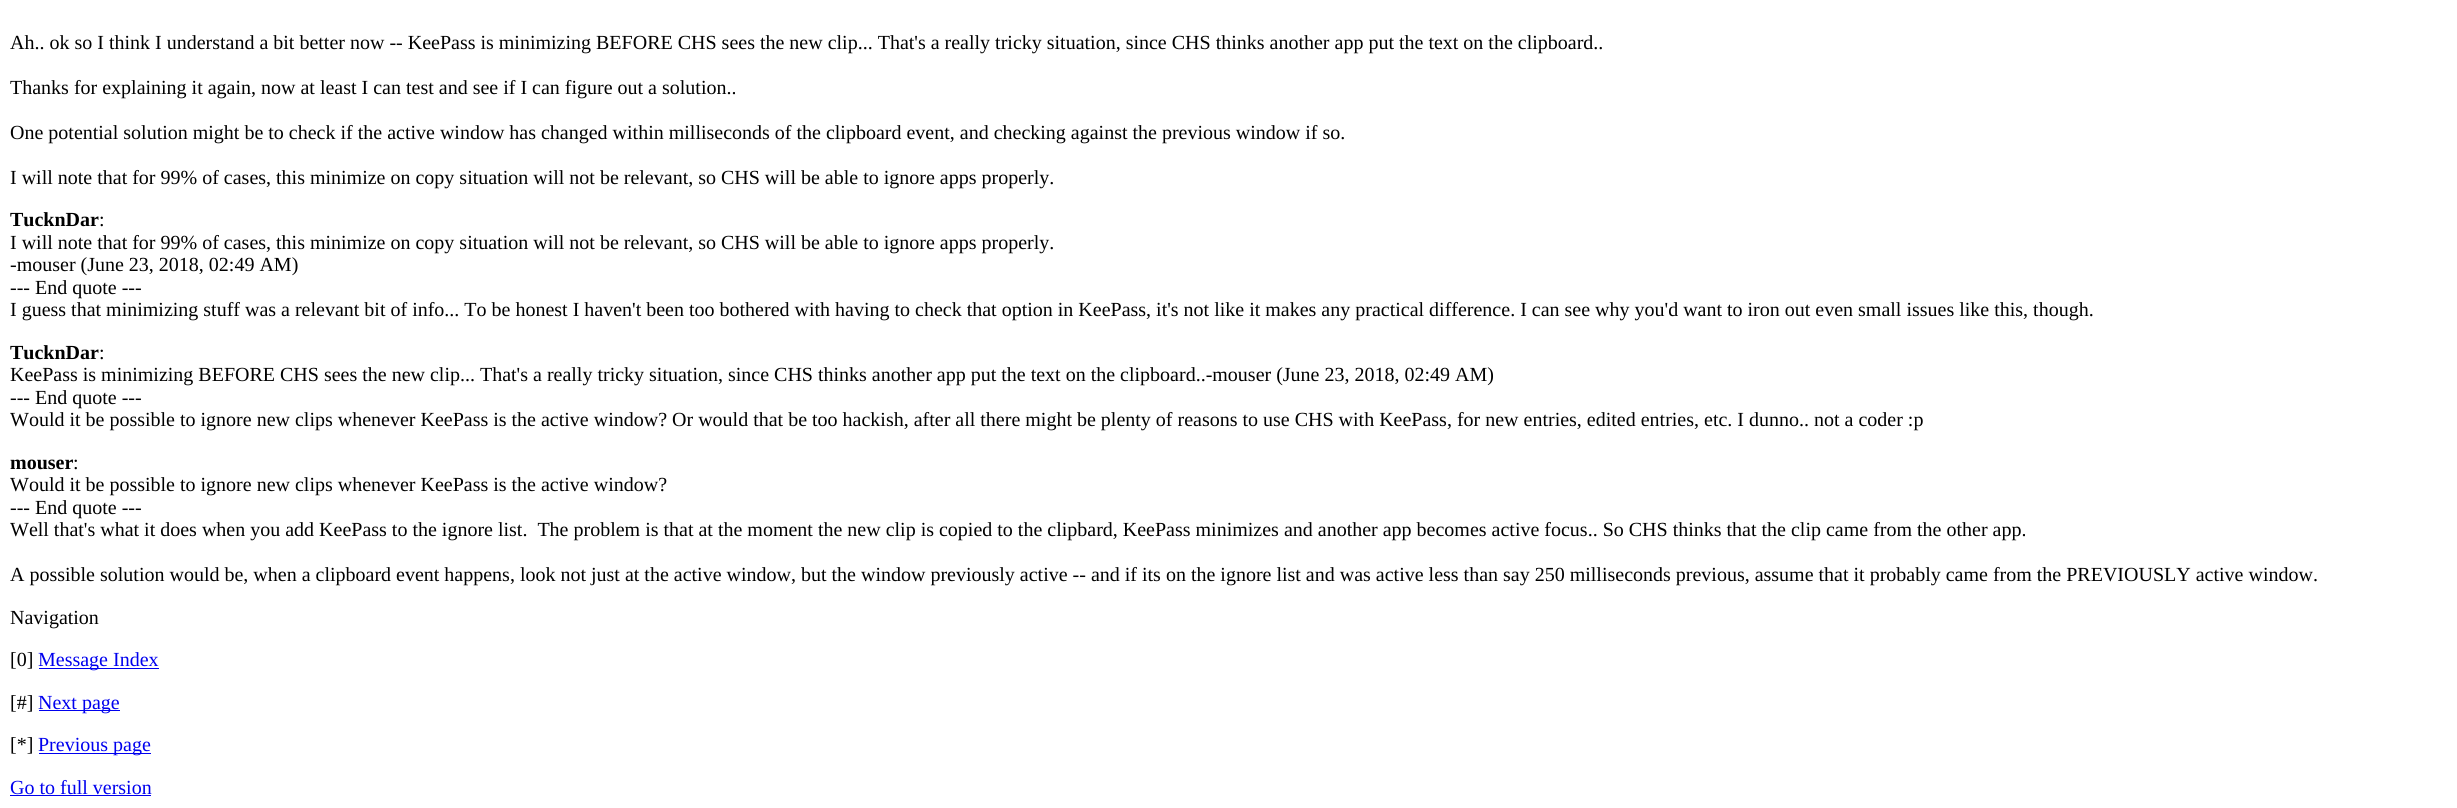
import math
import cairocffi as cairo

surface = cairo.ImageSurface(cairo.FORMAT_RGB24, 2457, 808)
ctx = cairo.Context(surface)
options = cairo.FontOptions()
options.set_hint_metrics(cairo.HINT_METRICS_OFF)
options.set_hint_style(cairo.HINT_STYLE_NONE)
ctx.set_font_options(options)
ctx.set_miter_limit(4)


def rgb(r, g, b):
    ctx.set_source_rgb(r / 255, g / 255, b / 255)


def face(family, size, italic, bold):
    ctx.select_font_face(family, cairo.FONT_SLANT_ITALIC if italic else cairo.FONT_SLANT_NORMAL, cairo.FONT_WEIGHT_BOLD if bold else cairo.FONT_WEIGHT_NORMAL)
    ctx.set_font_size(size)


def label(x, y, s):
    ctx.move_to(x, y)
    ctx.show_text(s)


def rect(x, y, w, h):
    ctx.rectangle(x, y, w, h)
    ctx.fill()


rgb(255, 255, 255)
ctx.paint()
face('Liberation Serif', 20, 0, 0)
rgb(0, 0, 0)
label(10, 49, 'Ah.. ok so I think I understand a bit better now -- KeePass is minimizing BEFORE CHS sees the new clip... That\'s a really tricky situation, since CHS thinks another app put the text on the clipboard..')
label(10, 94, 'Thanks for explaining it again, now at least I can test and see if I can figure out a solution..')
label(10, 139, 'One potential solution might be to check if the active window has changed within milliseconds of the clipboard event, and checking against the previous window if so.')
label(10, 184, 'I will note that for 99% of cases, this minimize on copy situation will not be relevant, so CHS will be able to ignore apps properly.')
face('Liberation Serif', 20, 0, 1)
label(10, 226, 'TucknDar')
face('Liberation Serif', 20, 0, 0)
label(99, 226, ':')
label(10, 249, 'I will note that for 99% of cases, this minimize on copy situation will not be relevant, so CHS will be able to ignore apps properly.')
label(10, 271, '-mouser (June 23, 2018, 02:49 AM)')
label(10, 294, '--- End quote ---')
label(10, 316, 'I guess that minimizing stuff was a relevant bit of info... To be honest I haven\'t been too bothered with having to check that option in KeePass, it\'s not like it makes any practical difference. I can see why you\'d want to iron out even small issues like this, though.')
face('Liberation Serif', 20, 0, 1)
label(10, 359, 'TucknDar')
face('Liberation Serif', 20, 0, 0)
label(99, 359, ':')
label(10, 381, 'KeePass is minimizing BEFORE CHS sees the new clip... That\'s a really tricky situation, since CHS thinks another app put the text on the clipboard..-mouser (June 23, 2018, 02:49 AM)')
label(10, 404, '--- End quote ---')
label(10, 426, 'Would it be possible to ignore new clips whenever KeePass is the active window? Or would that be too hackish, after all there might be plenty of reasons to use CHS with KeePass, for new entries, edited entries, etc. I dunno.. not a coder :p')
face('Liberation Serif', 20, 0, 1)
label(10, 469, 'mouser')
face('Liberation Serif', 20, 0, 0)
label(73, 469, ':')
label(10, 491, 'Would it be possible to ignore new clips whenever KeePass is the active window?')
label(10, 514, '--- End quote ---')
label(10, 536, 'Well that\'s what it does when you add KeePass to the ignore list.  The problem is that at the moment the new clip is copied to the clipbard, KeePass minimizes and another app becomes active focus.. So CHS thinks that the clip came from the other app.')
label(10, 581, 'A possible solution would be, when a clipboard event happens, look not just at the active window, but the window previously active -- and if its on the ignore list and was active less than say 250 milliseconds previous, assume that it probably came from the PREVIOUSLY active window.')
label(10, 624, 'Navigation')
label(10, 666, '[0]')
rgb(0, 0, 238)
rect(39, 668, 120, 1)
label(38, 666, 'Message Index')
rgb(0, 0, 0)
label(10, 709, '[#]')
rgb(0, 0, 238)
rect(39, 710, 81, 1)
label(38, 709, 'Next page')
rgb(0, 0, 0)
label(10, 751, '[*]')
rgb(0, 0, 238)
rect(39, 753, 112, 1)
label(38, 751, 'Previous page')
label(10, 794, 'Go to full version')
rect(10, 795, 141, 1)
surface.write_to_png('render.png')
